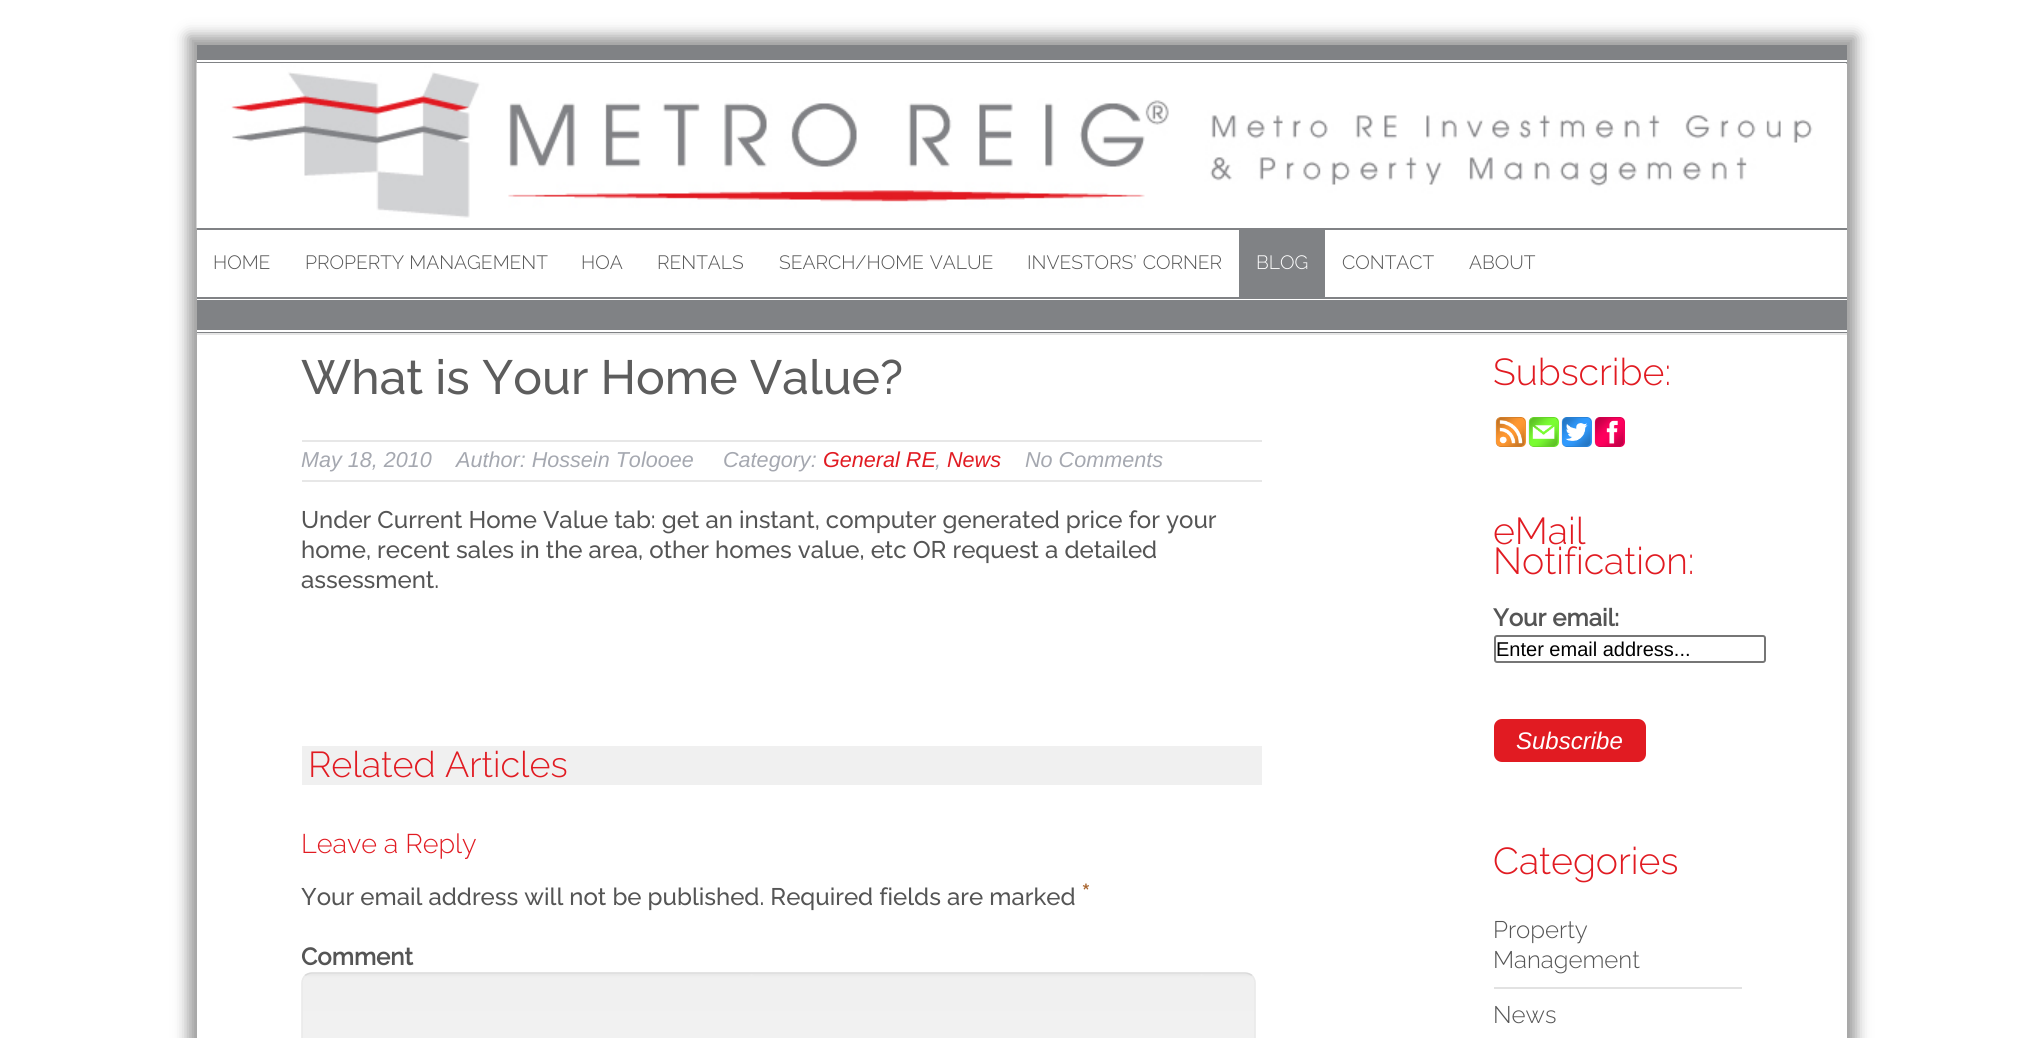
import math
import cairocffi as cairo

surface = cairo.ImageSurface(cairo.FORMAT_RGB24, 2041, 1038)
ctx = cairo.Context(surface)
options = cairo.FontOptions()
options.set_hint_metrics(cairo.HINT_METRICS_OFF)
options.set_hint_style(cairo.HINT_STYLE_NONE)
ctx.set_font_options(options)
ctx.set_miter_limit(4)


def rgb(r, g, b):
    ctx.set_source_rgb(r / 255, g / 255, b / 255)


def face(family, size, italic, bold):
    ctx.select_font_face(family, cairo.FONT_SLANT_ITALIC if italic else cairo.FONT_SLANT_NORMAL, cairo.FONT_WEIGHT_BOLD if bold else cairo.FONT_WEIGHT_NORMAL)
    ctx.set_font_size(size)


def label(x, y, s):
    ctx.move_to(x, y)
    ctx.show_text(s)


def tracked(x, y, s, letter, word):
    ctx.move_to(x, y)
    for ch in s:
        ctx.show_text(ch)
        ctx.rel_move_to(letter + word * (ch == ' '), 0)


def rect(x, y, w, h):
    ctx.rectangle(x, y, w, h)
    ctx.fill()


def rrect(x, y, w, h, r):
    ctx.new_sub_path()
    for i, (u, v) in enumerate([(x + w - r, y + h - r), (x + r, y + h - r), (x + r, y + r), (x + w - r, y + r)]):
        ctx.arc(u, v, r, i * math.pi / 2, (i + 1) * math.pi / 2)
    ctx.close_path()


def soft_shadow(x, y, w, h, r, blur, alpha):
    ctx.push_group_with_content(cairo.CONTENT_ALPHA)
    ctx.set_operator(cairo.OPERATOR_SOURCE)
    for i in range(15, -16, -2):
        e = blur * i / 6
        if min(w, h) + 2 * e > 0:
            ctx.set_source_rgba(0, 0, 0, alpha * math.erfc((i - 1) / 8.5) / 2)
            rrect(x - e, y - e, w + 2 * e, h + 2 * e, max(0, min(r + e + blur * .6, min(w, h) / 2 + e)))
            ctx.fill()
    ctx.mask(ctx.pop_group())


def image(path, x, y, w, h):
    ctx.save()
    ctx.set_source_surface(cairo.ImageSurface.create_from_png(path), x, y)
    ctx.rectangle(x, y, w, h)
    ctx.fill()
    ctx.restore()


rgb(255, 255, 255)
ctx.paint()
rgb(0, 0, 0)
soft_shadow(188, 36, 1668, 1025, 0, 7.5, 0.4)
rgb(255, 255, 255)
rect(197, 60, 1650, 978)
rgb(128, 130, 133)
rect(197, 45, 1650, 15)
rect(197, 62, 1650, 2)
image('image0.png', 196, 63, 1651, 165)
rect(197, 228, 1650, 2)
rect(197, 297, 1650, 2)
face('Raleway Light', 19.25, 0, 0)
rgb(85, 85, 85)
label(213, 269, 'HOME')
label(305, 269, 'PROPERTY MANAGEMENT')
label(581, 269, 'HOA')
label(657, 269, 'RENTALS')
tracked(779, 269, 'SEARCH/HOME VALUE', 0, 1)
tracked(1027, 269, 'INVESTORS’ CORNER', 0, 1)
rgb(128, 130, 133)
rect(1239, 230, 86, 67)
rgb(255, 255, 255)
label(1256, 269, 'BLOG')
rgb(85, 85, 85)
label(1342, 269, 'CONTACT')
label(1469, 269, 'ABOUT')
rgb(128, 130, 133)
rect(197, 332, 1650, 1)
rect(197, 300, 1650, 30)
rgb(230, 230, 230)
rect(197, 333, 1650, 2)
face('Raleway Medium', 48, 0, 0)
rgb(93, 93, 93)
label(301, 394, 'What is Your Home Value?')
rgb(231, 231, 231)
rect(302, 440, 960, 2)
rect(302, 480, 960, 2)
face('Liberation Sans', 21.6, 1, 0)
rgb(165, 168, 176)
label(301, 467, 'May 18, 2010')
label(456, 467, 'Author: Hossein Tolooee')
label(723, 467, 'Category:')
rgb(225, 27, 34)
label(823, 467, 'General RE')
rgb(165, 168, 176)
label(935, 467, ',')
rgb(225, 27, 34)
label(947, 467, 'News')
rgb(165, 168, 176)
label(1025, 467, 'No Comments')
face('Raleway Medium', 24, 0, 0)
rgb(85, 85, 85)
label(301, 528, 'Under Current Home Value tab: get an instant, computer generated price for your')
label(301, 558, 'home, recent sales in the area, other homes value, etc OR request a detailed')
label(301, 588, 'assessment.')
rgb(240, 240, 240)
rect(302, 746, 960, 39)
face('Raleway Light', 36, 0, 0)
rgb(225, 27, 34)
label(308, 777, 'Related Articles')
face('Raleway Light', 27, 0, 0)
label(301, 853, 'Leave a Reply')
face('Raleway Medium', 24, 0, 0)
rgb(85, 85, 85)
label(301, 905, 'Your email address will not be published. Required fields are marked')
face('Raleway Medium', 30, 0, 0)
rgb(169, 102, 48)
label(1081, 905, '*')
face('Raleway', 24, 0, 1)
rgb(85, 85, 85)
label(301, 965, 'Comment')
rgb(249, 249, 249)
rrect(302, 972, 954, 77, 11)
ctx.fill()
image('image1.png', 301, 972, 954, 66)
ctx.new_path()
ctx.move_to(305, 975.5)
ctx.curve_to(307, 974, 309.5, 973, 312, 973)
ctx.line_to(1245, 973)
ctx.curve_to(1247.5, 973, 1250, 974, 1252, 975.5)
rgb(217, 217, 217)
ctx.set_line_width(1.5)
ctx.stroke()
ctx.new_path()
ctx.move_to(1252, 975.5)
ctx.curve_to(1253.5, 977.5, 1255, 980, 1255, 982.5)
ctx.line_to(1255, 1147.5)
ctx.curve_to(1255, 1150, 1253.5, 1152.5, 1252, 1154.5)
rgb(234, 234, 234)
ctx.stroke()
ctx.new_path()
ctx.move_to(305, 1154.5)
ctx.curve_to(303.5, 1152.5, 302, 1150, 302, 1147.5)
ctx.line_to(302, 982.5)
ctx.curve_to(302, 980, 303.5, 977.5, 305, 975.5)
ctx.stroke()
face('Raleway Light', 37.5, 0, 0)
rgb(225, 27, 34)
label(1493, 385, 'Subscribe:')
rgb(255, 152, 49)
rrect(1496, 417, 30, 30, 5)
ctx.fill()
image('image2.png', 1495, 417, 31, 30)
rgb(122, 253, 50)
rrect(1529, 417, 30, 30, 5)
ctx.fill()
image('image3.png', 1528, 417, 31, 30)
rgb(48, 154, 254)
rrect(1562, 417, 30, 30, 5)
ctx.fill()
image('image4.png', 1561, 417, 31, 30)
rgb(255, 0, 93)
rrect(1595, 417, 30, 30, 5)
ctx.fill()
image('image5.png', 1594, 417, 31, 30)
rgb(225, 27, 34)
label(1493, 544, 'eMail')
label(1493, 574, 'Notification:')
face('Raleway', 24, 0, 1)
rgb(85, 85, 85)
label(1493, 626, 'Your email:')
rrect(1495, 636, 270, 26, 2)
rgb(118, 118, 118)
ctx.set_line_width(2)
ctx.stroke()
face('Liberation Sans', 20, 0, 0)
rgb(0, 0, 0)
label(1496, 656, 'Enter email address...')
rgb(225, 27, 34)
rrect(1494, 719, 152, 43, 8)
ctx.fill()
face('Liberation Sans', 24, 1, 0)
rgb(255, 255, 255)
label(1516, 749, 'Subscribe')
face('Raleway Light', 37.5, 0, 0)
rgb(225, 27, 34)
label(1493, 874, 'Categories')
rgb(226, 226, 226)
rect(1494, 987, 248, 2)
face('Raleway Light', 24, 0, 0)
rgb(85, 85, 85)
label(1493, 938, 'Property')
label(1493, 968, 'Management')
label(1493, 1023, 'News')
surface.write_to_png('render.png')
